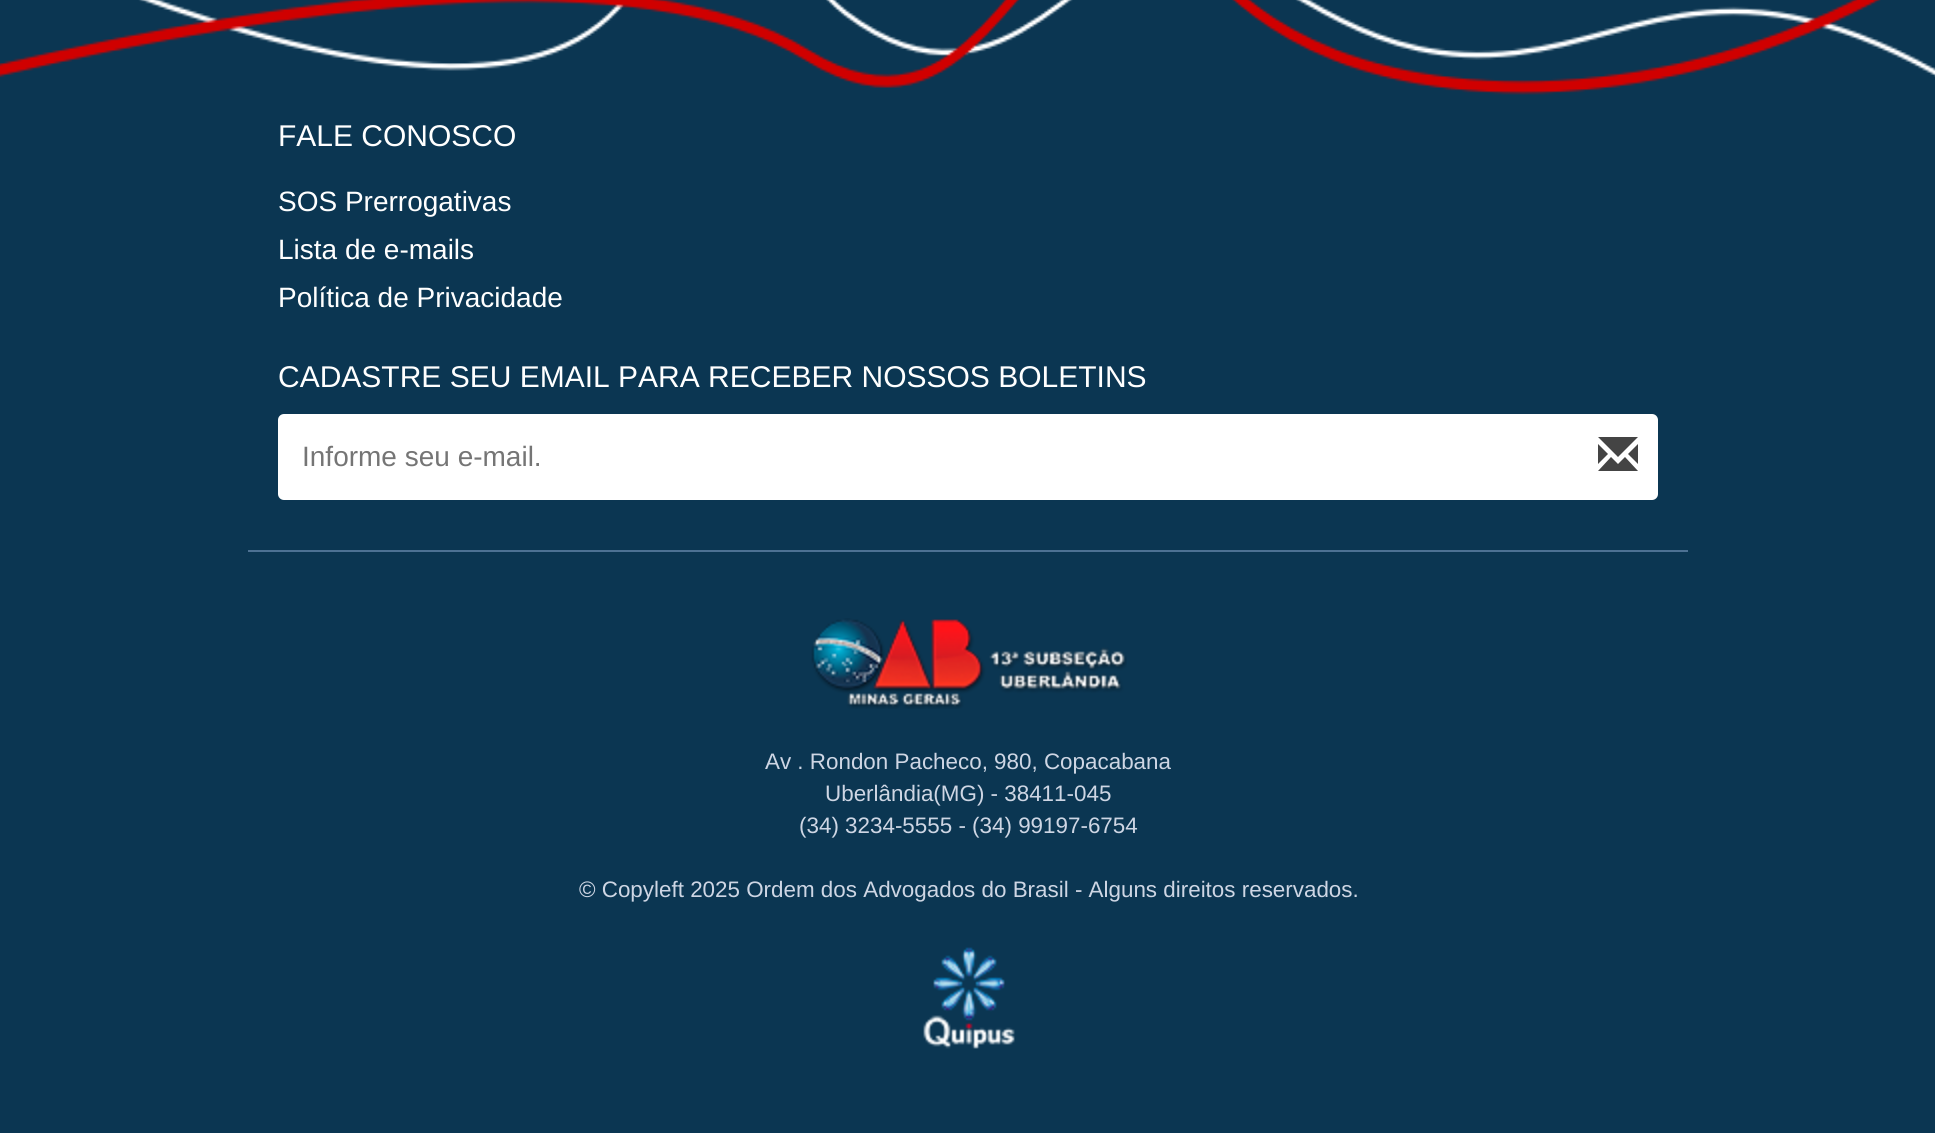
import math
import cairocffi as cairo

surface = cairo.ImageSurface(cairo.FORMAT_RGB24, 1935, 1133)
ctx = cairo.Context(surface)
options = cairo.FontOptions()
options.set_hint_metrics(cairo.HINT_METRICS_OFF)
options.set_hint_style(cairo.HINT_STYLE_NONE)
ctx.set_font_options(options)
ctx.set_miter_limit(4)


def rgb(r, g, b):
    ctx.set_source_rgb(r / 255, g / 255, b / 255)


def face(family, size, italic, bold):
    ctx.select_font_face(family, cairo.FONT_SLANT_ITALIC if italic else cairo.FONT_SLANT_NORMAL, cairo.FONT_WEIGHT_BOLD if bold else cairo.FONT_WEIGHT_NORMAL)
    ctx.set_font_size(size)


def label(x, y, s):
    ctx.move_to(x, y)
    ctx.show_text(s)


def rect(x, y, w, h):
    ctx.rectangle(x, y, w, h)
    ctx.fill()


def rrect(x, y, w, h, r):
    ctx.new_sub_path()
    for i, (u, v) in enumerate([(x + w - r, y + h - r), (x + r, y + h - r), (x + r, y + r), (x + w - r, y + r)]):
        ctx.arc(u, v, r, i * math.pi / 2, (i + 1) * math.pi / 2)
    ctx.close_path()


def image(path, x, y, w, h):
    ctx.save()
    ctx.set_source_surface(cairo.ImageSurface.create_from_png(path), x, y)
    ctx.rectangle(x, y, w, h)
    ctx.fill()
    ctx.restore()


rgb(11, 54, 82)
ctx.paint()
image('image0.png', 0, 0, 1935, 95)
face('Liberation Sans', 30, 0, 0)
rgb(255, 255, 255)
label(278, 146, 'FALE CONOSCO')
face('Liberation Sans', 28, 0, 0)
label(278, 211, 'SOS Prerrogativas')
label(278, 259, 'Lista de e-mails')
label(278, 307, 'Política de Privacidade')
face('Liberation Sans', 30, 0, 0)
label(278, 387, 'CADASTRE SEU EMAIL PARA RECEBER NOSSOS BOLETINS')
rrect(278, 414, 1380, 86, 6)
ctx.fill()
face('Liberation Sans', 28, 0, 0)
rgb(117, 117, 117)
label(302, 466, 'Informe seu e-mail.')
rgb(68, 68, 68)
ctx.new_path()
ctx.move_to(1598, 471)
ctx.line_to(1611, 457)
ctx.line_to(1618, 464)
ctx.line_to(1625, 457)
ctx.line_to(1638, 471)
ctx.close_path()
ctx.move_to(1598, 464)
ctx.line_to(1598, 444)
ctx.line_to(1608, 454)
ctx.close_path()
ctx.move_to(1598, 437)
ctx.line_to(1618, 457)
ctx.line_to(1638, 437)
ctx.close_path()
ctx.move_to(1628, 454)
ctx.line_to(1638, 444)
ctx.line_to(1638, 464)
ctx.close_path()
ctx.fill()
rgb(77, 113, 147)
rect(248, 550, 1440, 2)
image('image1.png', 811, 618, 316, 91)
face('Liberation Sans', 22.4, 0, 0)
rgb(206, 214, 228)
label(765, 769, 'Av . Rondon Pacheco, 980, Copacabana')
label(825, 801, 'Uberlândia(MG) - 38411-045')
label(799, 833, '(34) 3234-5555 - (34) 99197-6754')
label(579, 897, '© Copyleft 2025 Ordem dos Advogados do Brasil - Alguns direitos reservados.')
image('image2.png', 923, 947, 92, 102)
surface.write_to_png('render.png')
